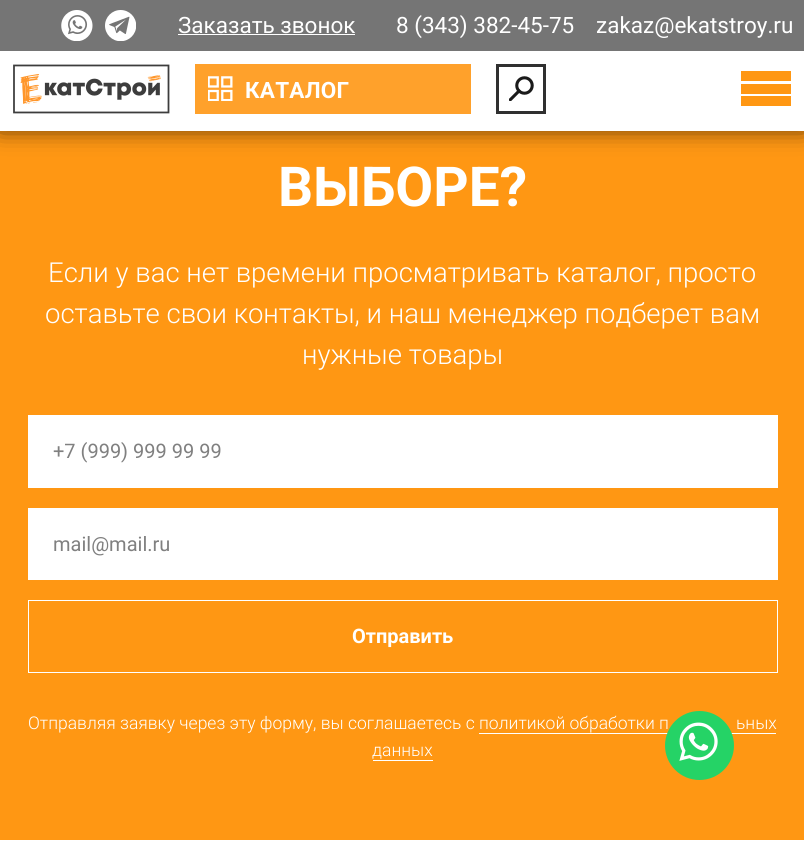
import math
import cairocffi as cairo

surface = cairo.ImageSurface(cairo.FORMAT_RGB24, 804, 851)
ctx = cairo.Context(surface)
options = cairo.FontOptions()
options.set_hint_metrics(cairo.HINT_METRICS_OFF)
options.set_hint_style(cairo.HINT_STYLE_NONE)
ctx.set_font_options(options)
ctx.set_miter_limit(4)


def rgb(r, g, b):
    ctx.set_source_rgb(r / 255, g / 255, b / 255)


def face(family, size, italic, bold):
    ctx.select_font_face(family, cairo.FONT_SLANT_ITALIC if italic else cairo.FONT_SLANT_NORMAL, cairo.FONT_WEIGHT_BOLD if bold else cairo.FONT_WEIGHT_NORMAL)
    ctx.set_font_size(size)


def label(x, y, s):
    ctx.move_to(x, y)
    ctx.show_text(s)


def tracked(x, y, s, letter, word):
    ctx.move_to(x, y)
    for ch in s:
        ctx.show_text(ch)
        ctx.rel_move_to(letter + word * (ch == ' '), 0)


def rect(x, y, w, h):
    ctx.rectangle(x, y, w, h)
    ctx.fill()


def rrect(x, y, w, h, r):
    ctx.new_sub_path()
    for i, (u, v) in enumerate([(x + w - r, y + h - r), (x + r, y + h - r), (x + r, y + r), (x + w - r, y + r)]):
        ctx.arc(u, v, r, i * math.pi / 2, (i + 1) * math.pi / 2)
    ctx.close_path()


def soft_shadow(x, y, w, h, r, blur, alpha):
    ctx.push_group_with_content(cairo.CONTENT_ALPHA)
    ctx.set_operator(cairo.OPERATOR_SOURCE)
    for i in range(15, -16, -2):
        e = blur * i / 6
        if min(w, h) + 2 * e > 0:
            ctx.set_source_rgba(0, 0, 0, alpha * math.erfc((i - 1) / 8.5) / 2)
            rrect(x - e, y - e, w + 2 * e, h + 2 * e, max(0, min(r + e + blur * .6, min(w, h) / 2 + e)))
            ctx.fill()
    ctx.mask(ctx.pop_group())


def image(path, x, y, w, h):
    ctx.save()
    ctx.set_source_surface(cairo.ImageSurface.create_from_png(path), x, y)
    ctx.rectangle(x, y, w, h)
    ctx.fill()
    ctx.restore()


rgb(255, 255, 255)
ctx.paint()
rgb(255, 151, 19)
rect(0, 131, 804, 709)
rgb(0, 0, 0)
soft_shadow(0, -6, 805, 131, 0, 12.5, 1)
rgb(255, 255, 255)
rect(0, 51, 804, 80)
rgb(117, 117, 117)
rect(0, 0, 804, 51)
image('image0.png', 61, 10, 32, 31)
image('image1.png', 105, 10, 31, 31)
face('Roboto', 22.5, 0, 0)
rgb(255, 255, 255)
label(178, 33, 'Заказать звонок')
rect(178, 34, 177, 1)
label(396, 33, '8 (343) 382-45-75')
label(596, 33, 'zakaz@ekatstroy.ru')
image('image2.png', 13, 64, 157, 50)
rgb(255, 161, 43)
rect(195, 64, 276, 50)
ctx.rectangle(497.5, 65.5, 47, 47)
rgb(26, 26, 26)
ctx.set_line_width(3)
ctx.stroke()
image('image3.png', 208, 76, 25, 25)
ctx.set_source_rgba(1, 1, 1, 0.1)
rect(496, 64, 50, 50)
rgb(255, 151, 19)
rect(741, 71, 50, 10)
face('Roboto', 22.5, 0, 1)
rgb(255, 255, 255)
tracked(245, 98, 'КАТАЛОГ', 0.25, 0)
image('image4.png', 509, 76, 25, 25)
rgb(255, 151, 19)
rect(741, 84, 50, 10)
rect(741, 96, 50, 10)
face('Roboto', 55, 0, 1)
rgb(255, 255, 255)
label(278, 206, 'ВЫБОРЕ?')
face('Roboto Light', 27.5, 0, 0)
label(48, 282, 'Если у вас нет времени просматривать каталог, просто')
label(45, 323, 'оставьте свои контакты, и наш менеджер подберет вам')
label(302, 364, 'нужные товары')
rect(28, 415, 750, 73)
face('Roboto', 20, 0, 0)
rgb(128, 128, 128)
label(53, 458, '+7 (999) 999 99 99')
rgb(255, 255, 255)
rect(28, 508, 750, 72)
rgb(128, 128, 128)
label(53, 551, 'mail@mail.ru')
ctx.rectangle(28.5, 600.5, 749, 72)
rgb(255, 255, 255)
ctx.set_line_width(1)
ctx.stroke()
face('Roboto', 20, 0, 1)
label(352, 643, 'Отправить')
face('Roboto Light', 17.5, 0, 0)
label(28, 729, 'Отправляя заявку через эту форму, вы соглашаетесь с политикой обработки п')
label(736, 729, 'ьных')
rect(479, 733, 297, 1)
label(372, 756, 'данных')
rect(373, 760, 60, 1)
rgb(37, 211, 102)
ctx.new_path()
ctx.arc(699.5, 745.5, 34.5, 0, 2 * math.pi)
ctx.fill()
image('image5.png', 679, 722, 39, 39)
surface.write_to_png('render.png')
